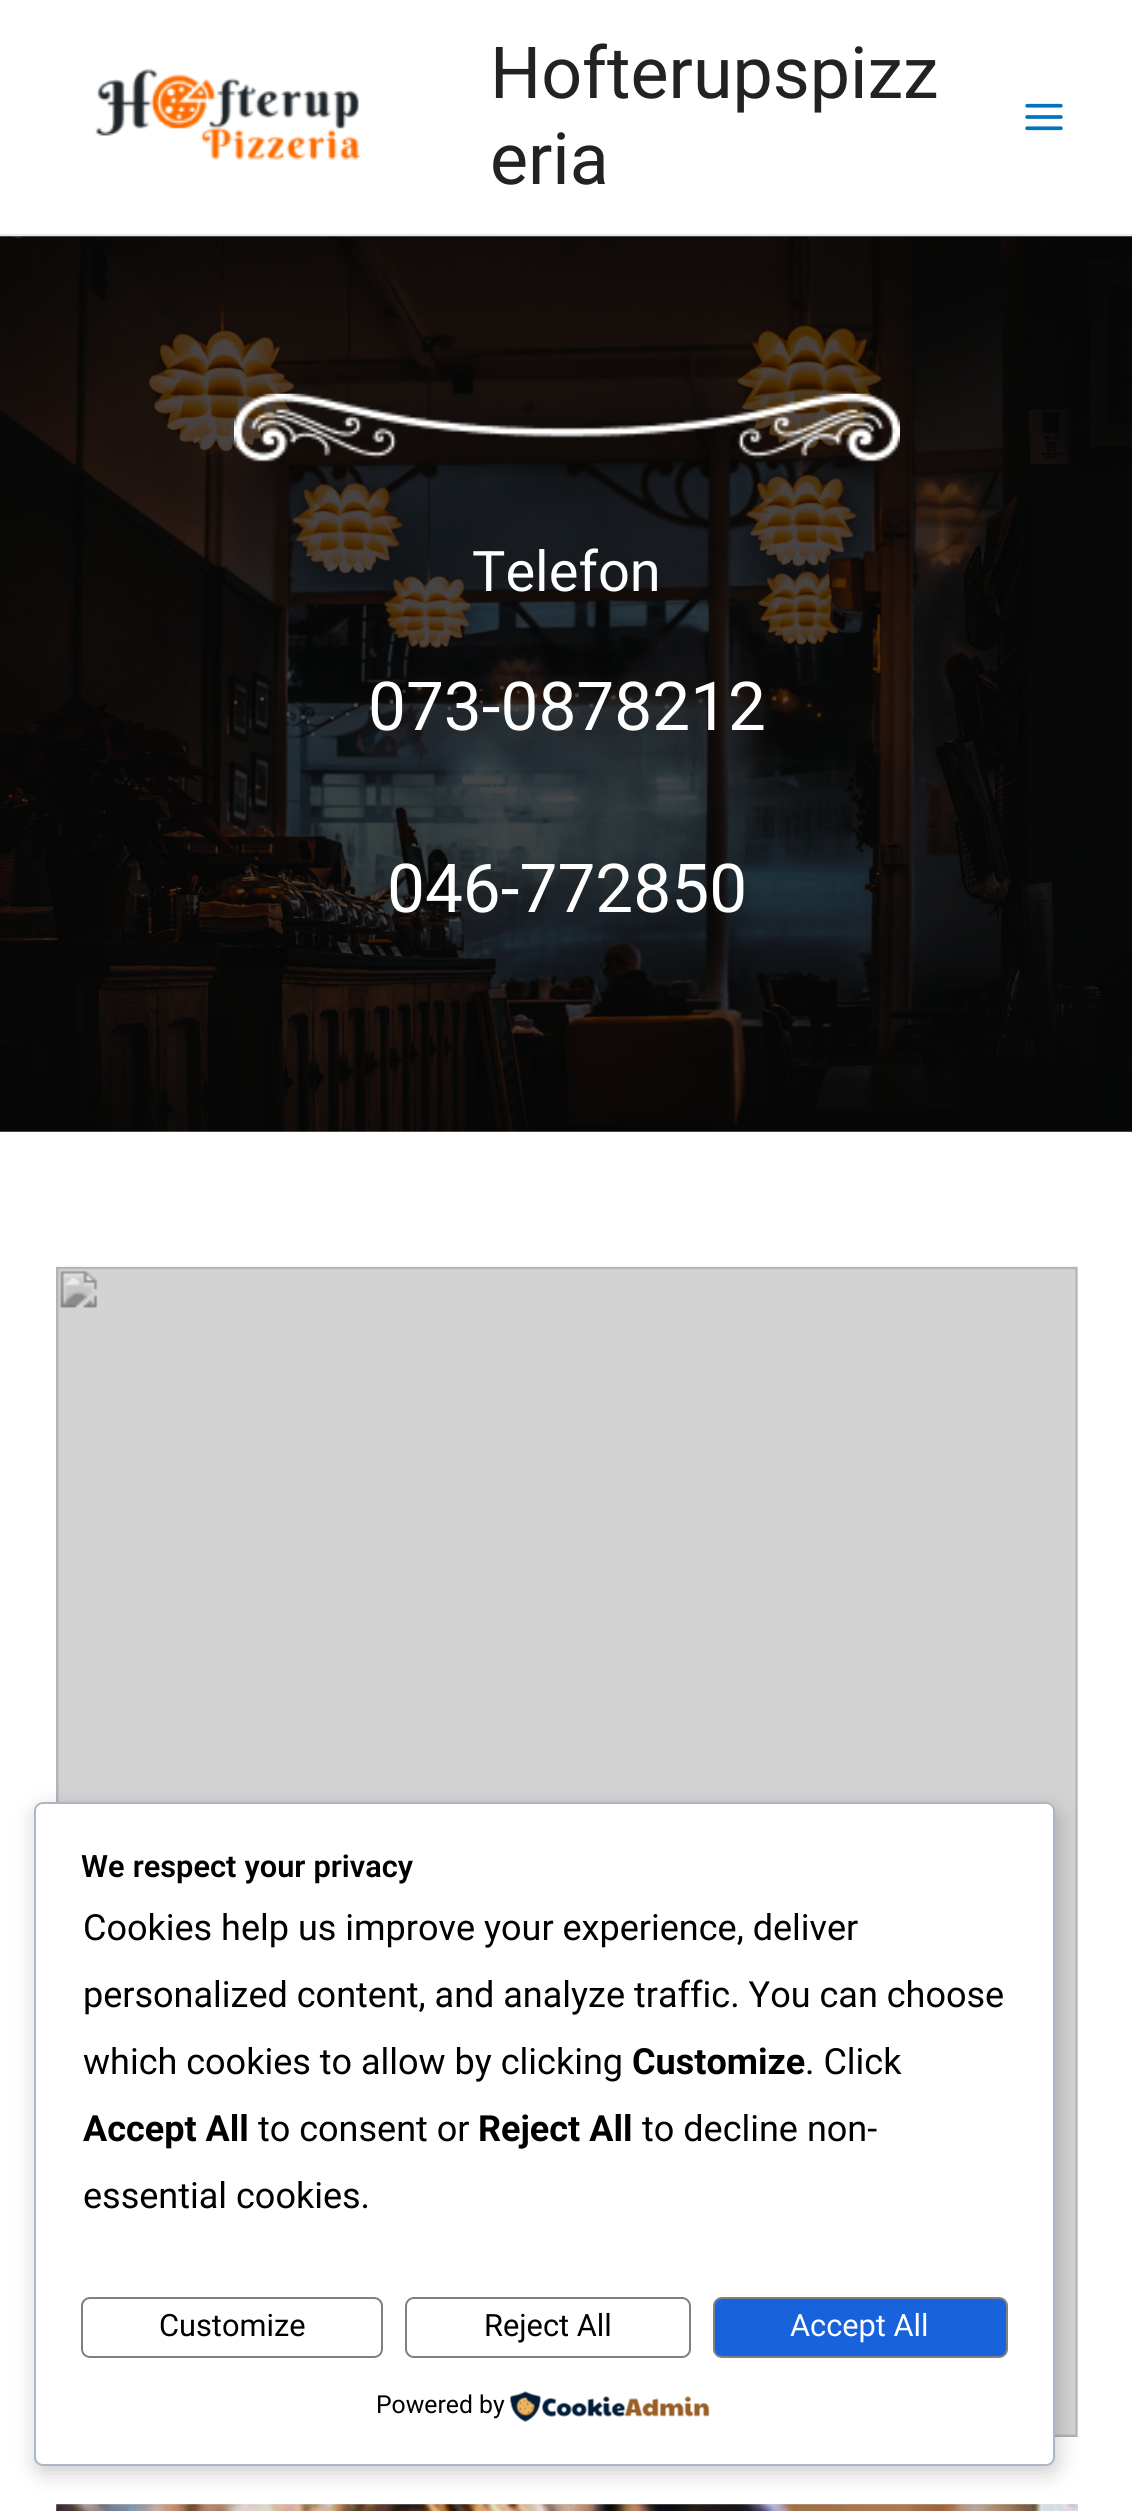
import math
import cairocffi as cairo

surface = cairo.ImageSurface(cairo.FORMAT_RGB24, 1132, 2511)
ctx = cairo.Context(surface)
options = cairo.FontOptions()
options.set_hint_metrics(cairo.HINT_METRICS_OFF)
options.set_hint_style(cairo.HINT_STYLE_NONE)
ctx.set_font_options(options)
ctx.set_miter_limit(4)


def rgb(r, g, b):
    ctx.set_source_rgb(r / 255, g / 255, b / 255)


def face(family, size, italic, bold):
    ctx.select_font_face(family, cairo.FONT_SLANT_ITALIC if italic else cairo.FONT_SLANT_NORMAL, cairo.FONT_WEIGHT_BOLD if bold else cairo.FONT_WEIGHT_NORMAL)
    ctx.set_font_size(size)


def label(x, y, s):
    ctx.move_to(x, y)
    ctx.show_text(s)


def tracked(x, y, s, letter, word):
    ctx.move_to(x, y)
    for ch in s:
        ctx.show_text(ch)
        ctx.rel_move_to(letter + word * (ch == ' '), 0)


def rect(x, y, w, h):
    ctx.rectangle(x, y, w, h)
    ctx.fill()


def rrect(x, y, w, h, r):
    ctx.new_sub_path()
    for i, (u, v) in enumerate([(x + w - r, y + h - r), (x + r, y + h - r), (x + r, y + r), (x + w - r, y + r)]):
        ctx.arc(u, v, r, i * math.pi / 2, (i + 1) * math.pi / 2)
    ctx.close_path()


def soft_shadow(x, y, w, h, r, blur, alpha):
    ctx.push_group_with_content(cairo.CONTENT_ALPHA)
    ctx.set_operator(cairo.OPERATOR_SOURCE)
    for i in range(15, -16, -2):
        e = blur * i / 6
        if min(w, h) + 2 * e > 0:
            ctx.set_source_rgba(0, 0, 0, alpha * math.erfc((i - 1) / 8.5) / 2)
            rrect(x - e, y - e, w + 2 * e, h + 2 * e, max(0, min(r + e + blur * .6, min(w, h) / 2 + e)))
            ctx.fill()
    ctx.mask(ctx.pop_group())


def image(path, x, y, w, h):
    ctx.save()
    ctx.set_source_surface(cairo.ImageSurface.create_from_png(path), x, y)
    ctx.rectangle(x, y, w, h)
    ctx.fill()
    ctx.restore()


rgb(255, 255, 255)
ctx.paint()
rgb(230, 230, 230)
rect(56, 2504, 1022, 7)
rgb(234, 234, 234)
rect(0, 234, 1132, 2)
image('image0.png', 95, 69, 266, 91)
face('Roboto', 71.75, 0, 0)
rgb(34, 34, 34)
label(490, 98, 'Hofterupspizz')
label(490, 184, 'eria')
image('image1.png', 1025, 103, 38, 28)
image('image2.png', 0, 236, 1132, 896)
image('image3.png', 234, 393, 666, 69)
face('Roboto', 56, 0, 0)
rgb(255, 255, 255)
label(472, 591, 'Telefon')
face('Roboto', 67.5, 0, 0)
label(368, 730, '073-0878212')
label(387, 912, '046-772850')
image('image4.png', 56, 1266, 1022, 1171)
image('image5.png', 56, 2504, 1022, 7)
rgb(0, 0, 0)
soft_shadow(36, 1809, 1022, 664, 9, 11, 0.2)
rgb(255, 255, 255)
rrect(35, 1803, 1019, 662, 8)
ctx.fill_preserve()
rgb(171, 184, 195)
ctx.stroke()
face('Roboto SemiBold', 30.75, 0, 0)
rgb(0, 0, 0)
tracked(81, 1877, 'We respect your privacy', 0, 0.5)
face('Roboto', 36, 0, 0)
label(83, 1940, 'Cookies help us improve your experience, deliver')
label(83, 2007, 'personalized content, and analyze traffic. You can choose')
label(83, 2074, 'which cookies to allow by clicking')
face('Roboto', 36, 0, 1)
label(632, 2074, 'Customize')
face('Roboto', 36, 0, 0)
label(805, 2074, '. Click')
face('Roboto', 36, 0, 1)
label(83, 2141, 'Accept All')
face('Roboto', 36, 0, 0)
label(258, 2141, 'to consent or')
face('Roboto', 36, 0, 1)
label(478, 2141, 'Reject All')
face('Roboto', 36, 0, 0)
label(642, 2141, 'to decline non-')
label(83, 2208, 'essential cookies.')
rrect(82, 2298, 300, 59, 8)
rgb(128, 128, 128)
ctx.stroke()
face('Roboto', 30.75, 0, 0)
rgb(0, 0, 0)
label(159, 2336, 'Customize')
rrect(406, 2298, 284, 59, 8)
rgb(128, 128, 128)
ctx.stroke()
rgb(0, 0, 0)
label(484, 2336, 'Reject All')
rgb(24, 99, 220)
rrect(714, 2298, 293, 59, 8)
ctx.fill_preserve()
rgb(128, 128, 128)
ctx.stroke()
rgb(255, 255, 255)
label(790, 2336, 'Accept All')
face('Roboto', 24.75, 0, 0)
rgb(0, 0, 0)
label(376, 2413, 'Powered by')
image('image6.png', 510, 2391, 200, 31)
surface.write_to_png('render.png')
